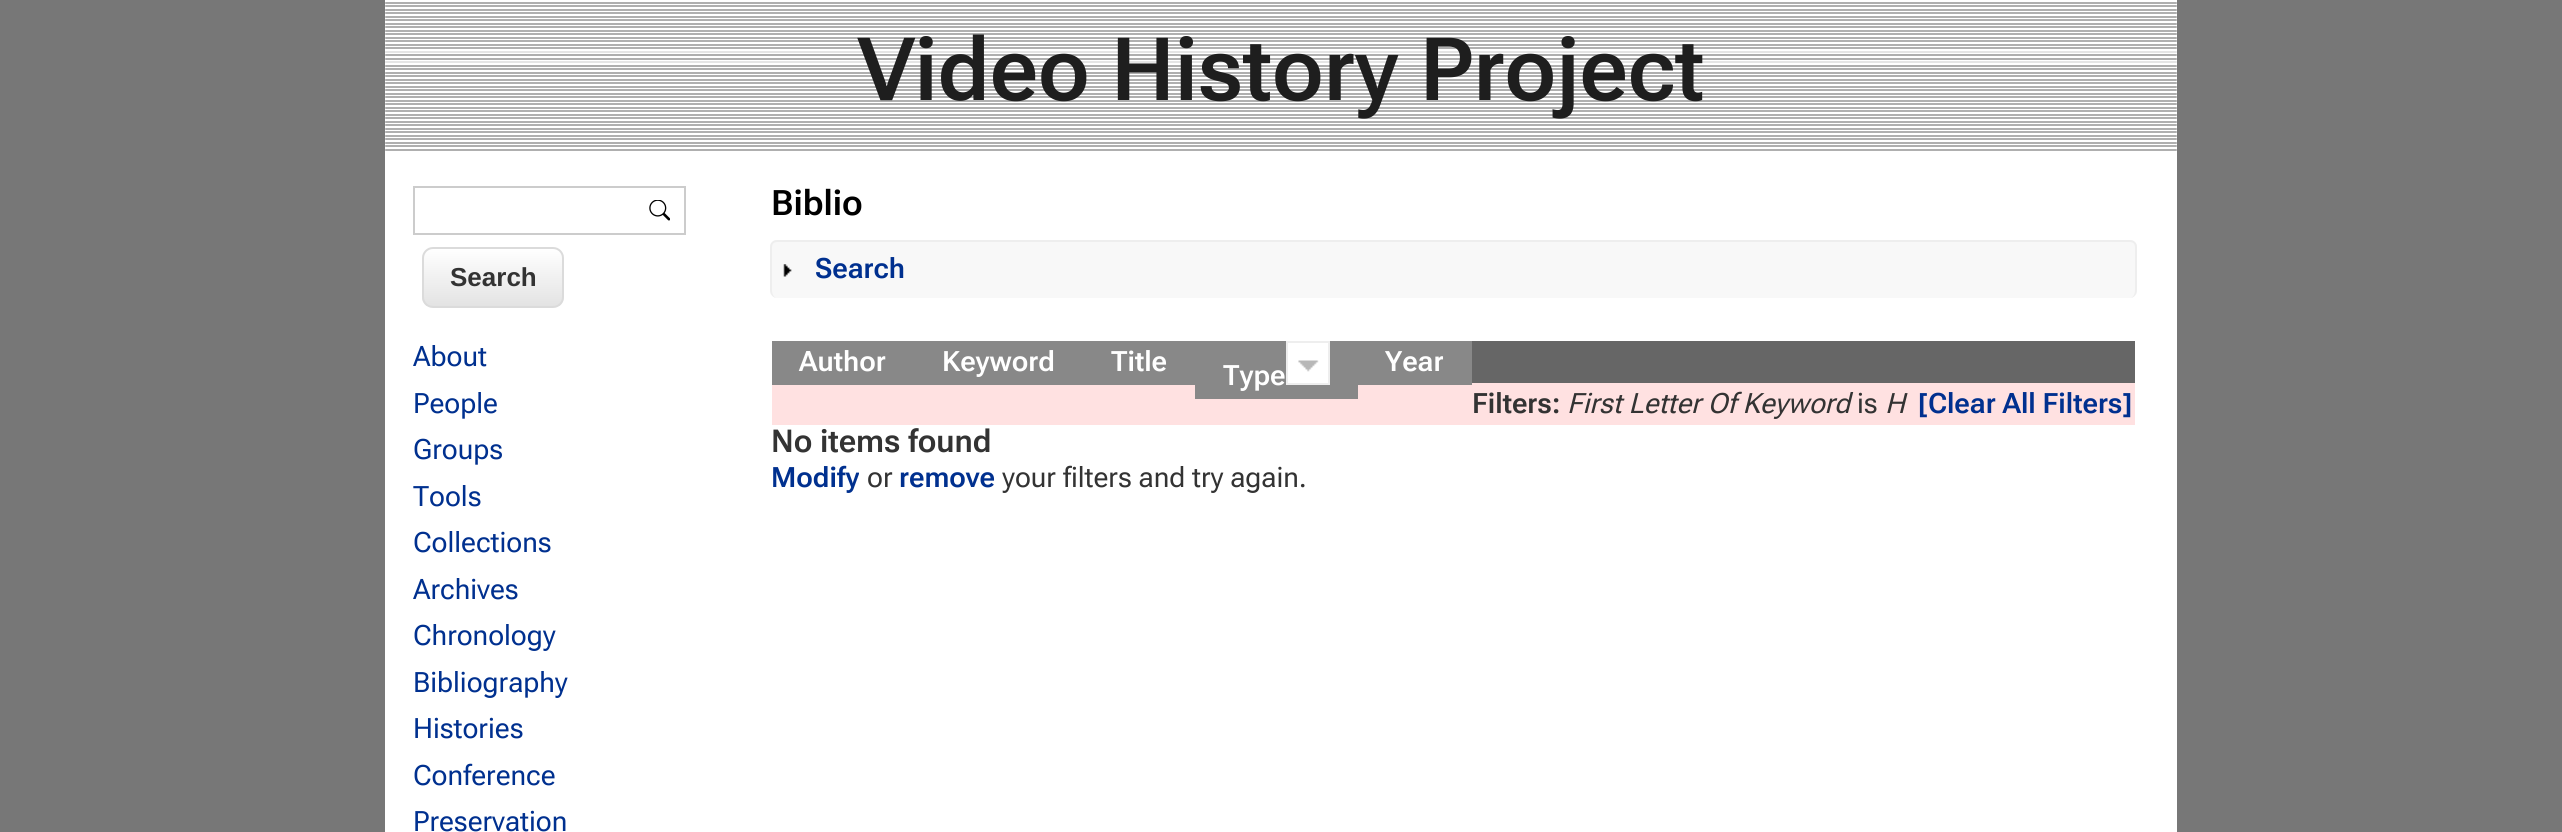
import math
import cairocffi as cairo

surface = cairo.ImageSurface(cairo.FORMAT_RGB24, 2562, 832)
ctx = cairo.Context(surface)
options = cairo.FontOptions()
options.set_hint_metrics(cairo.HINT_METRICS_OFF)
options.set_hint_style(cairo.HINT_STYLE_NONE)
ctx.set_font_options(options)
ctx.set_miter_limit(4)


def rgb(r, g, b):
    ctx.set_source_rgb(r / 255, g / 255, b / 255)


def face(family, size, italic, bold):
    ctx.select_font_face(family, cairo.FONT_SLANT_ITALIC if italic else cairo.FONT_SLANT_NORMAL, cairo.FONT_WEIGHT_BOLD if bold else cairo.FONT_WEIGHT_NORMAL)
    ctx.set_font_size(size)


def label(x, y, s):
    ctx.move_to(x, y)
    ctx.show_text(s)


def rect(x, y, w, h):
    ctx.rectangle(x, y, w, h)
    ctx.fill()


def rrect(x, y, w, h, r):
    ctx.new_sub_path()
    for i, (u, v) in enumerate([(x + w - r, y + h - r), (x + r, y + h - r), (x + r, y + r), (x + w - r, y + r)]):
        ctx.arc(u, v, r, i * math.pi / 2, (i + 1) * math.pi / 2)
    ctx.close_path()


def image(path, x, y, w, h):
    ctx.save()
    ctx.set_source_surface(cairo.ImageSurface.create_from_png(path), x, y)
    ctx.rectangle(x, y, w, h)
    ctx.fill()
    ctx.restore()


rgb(119, 119, 119)
ctx.paint()
rgb(255, 255, 255)
rect(385, 0, 1792, 832)
image('image0.png', 385, 2, 1792, 149)
face('Roboto Flex SemiBold', 87.5, 0, 0)
rgb(30, 30, 30)
label(858, 100, 'Video History Project')
image('image1.png', 649, 200, 21, 21)
ctx.rectangle(414, 187, 271, 47)
rgb(204, 204, 204)
ctx.stroke()
ctx.save()
rrect(422, 247, 142, 61, 11)
ctx.clip()
gradient = cairo.LinearGradient(493, 249, 493, 306)
gradient.add_color_stop_rgba(0, 1, 1, 1, 1)
gradient.add_color_stop_rgba(1, 0.89, 0.89, 0.89, 1)
ctx.set_source(gradient)
rect(422, 249, 142, 57)
ctx.restore()
rrect(423, 248, 140, 59, 10)
rgb(219, 219, 219)
ctx.stroke()
face('Liberation Sans', 26, 0, 1)
rgb(51, 51, 51)
label(450, 286, 'Search')
face('Roboto Flex', 28, 0, 0)
rgb(0, 48, 143)
label(413, 366, 'About')
label(413, 413, 'People')
label(413, 459, 'Groups')
label(413, 506, 'Tools')
label(413, 552, 'Collections')
label(413, 599, 'Archives')
label(413, 645, 'Chronology')
label(413, 692, 'Bibliography')
label(413, 738, 'Histories')
label(413, 785, 'Conference')
label(413, 831, 'Preservation')
face('Roboto Flex SemiBold', 35, 0, 0)
rgb(0, 0, 0)
label(771, 215, 'Biblio')
rgb(248, 248, 248)
rrect(770, 240, 1367, 58, 7)
ctx.fill()
rgb(238, 238, 238)
ctx.set_fill_rule(cairo.FILL_RULE_EVEN_ODD)
ctx.new_path()
ctx.move_to(777, 240)
ctx.line_to(2130, 240)
ctx.curve_to(2134, 240, 2137, 243, 2137, 247)
ctx.line_to(2137, 290)
ctx.curve_to(2137, 294, 2134, 298, 2130, 298)
ctx.line_to(777, 298)
ctx.curve_to(773, 298, 770, 294, 770, 290)
ctx.line_to(770, 247)
ctx.curve_to(770, 243, 773, 240, 777, 240)
ctx.close_path()
ctx.move_to(777, 242)
ctx.line_to(2130, 242)
ctx.curve_to(2133, 242, 2135, 244, 2135, 247)
ctx.line_to(2135, 290)
ctx.curve_to(2135, 294, 2133, 298, 2130, 298)
ctx.line_to(777, 298)
ctx.curve_to(774, 298, 772, 294, 772, 290)
ctx.line_to(772, 247)
ctx.curve_to(772, 244, 774, 242, 777, 242)
ctx.close_path()
ctx.fill()
image('image2.png', 783, 264, 9, 13)
face('Roboto Flex SemiBold', 28, 0, 0)
rgb(0, 48, 143)
label(815, 278, 'Search')
rgb(102, 102, 102)
rect(1472, 341, 663, 42)
rgb(255, 225, 225)
rect(772, 383, 1363, 42)
rgb(136, 136, 136)
rect(772, 341, 423, 44)
rgb(255, 255, 255)
label(799, 371, 'Author')
label(942, 371, 'Keyword')
label(1111, 371, 'Title')
rgb(136, 136, 136)
rect(1358, 341, 114, 44)
rgb(255, 255, 255)
label(1385, 371, 'Year')
rgb(136, 136, 136)
rect(1195, 341, 163, 58)
rgb(255, 255, 255)
label(1223, 385, 'Type')
ctx.rectangle(1287, 342, 42, 42)
ctx.fill_preserve()
rgb(238, 238, 238)
ctx.stroke()
image('image3.png', 1298, 360, 21, 12)
rgb(51, 51, 51)
label(1472, 413, 'Filters:')
face('Roboto Flex', 28, 1, 0)
label(1567, 413, 'First Letter Of Keyword')
face('Roboto Flex', 28, 0, 0)
label(1857, 413, 'is')
face('Roboto Flex', 28, 1, 0)
label(1885, 413, 'H')
face('Roboto Flex SemiBold', 28, 0, 0)
rgb(0, 48, 143)
label(1918, 413, '[Clear All Filters]')
face('Roboto Flex SemiBold', 31.5, 0, 0)
rgb(51, 51, 51)
label(771, 452, 'No items found')
face('Roboto Flex SemiBold', 28, 0, 0)
rgb(0, 48, 143)
label(771, 487, 'Modify')
face('Roboto Flex', 28, 0, 0)
rgb(51, 51, 51)
label(867, 487, 'or')
face('Roboto Flex SemiBold', 28, 0, 0)
rgb(0, 48, 143)
label(899, 487, 'remove')
face('Roboto Flex', 28, 0, 0)
rgb(51, 51, 51)
label(1002, 487, 'your filters and try again.')
surface.write_to_png('render.png')
